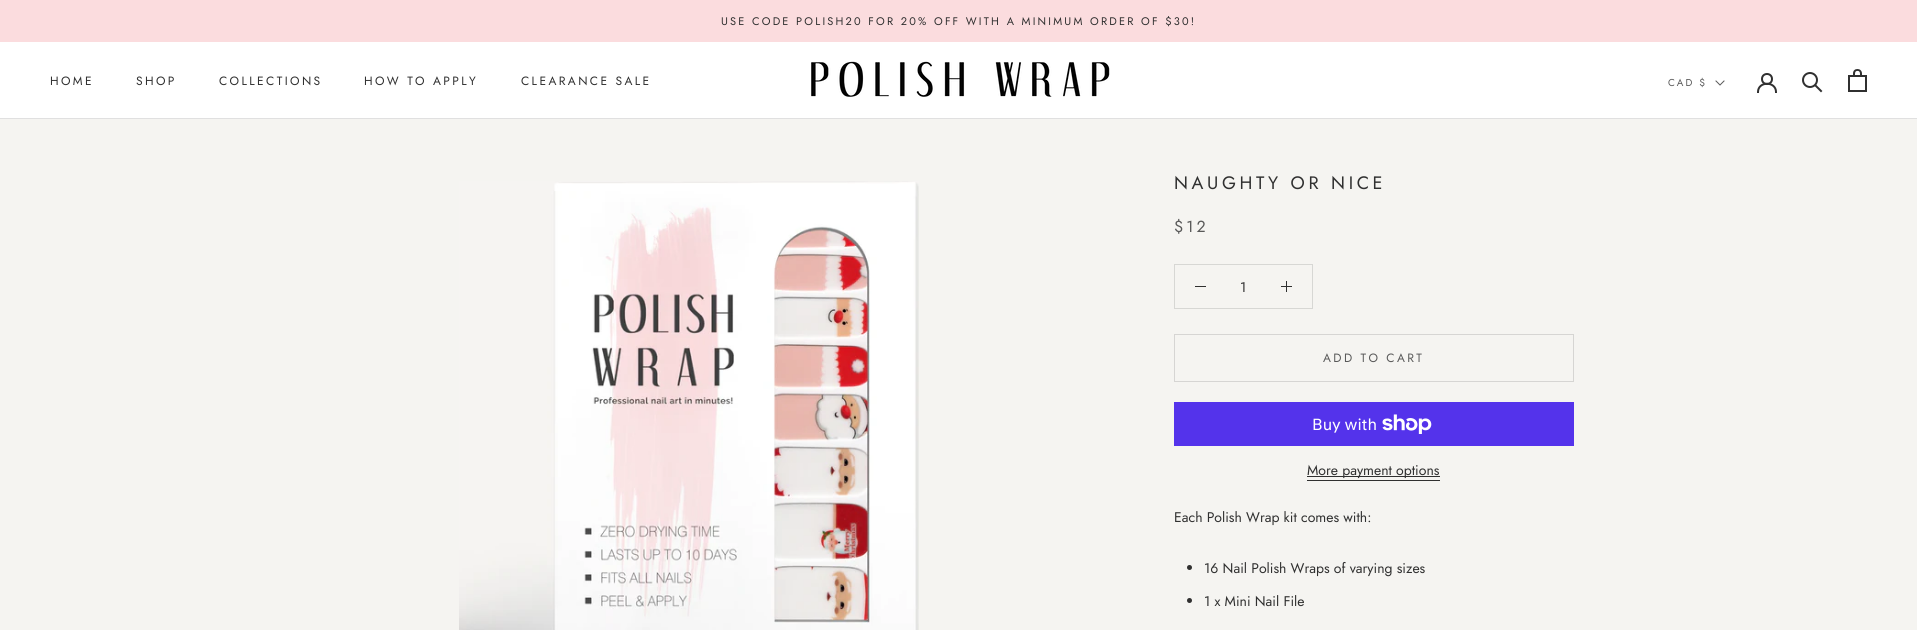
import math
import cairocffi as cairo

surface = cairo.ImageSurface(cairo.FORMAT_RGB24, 1917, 630)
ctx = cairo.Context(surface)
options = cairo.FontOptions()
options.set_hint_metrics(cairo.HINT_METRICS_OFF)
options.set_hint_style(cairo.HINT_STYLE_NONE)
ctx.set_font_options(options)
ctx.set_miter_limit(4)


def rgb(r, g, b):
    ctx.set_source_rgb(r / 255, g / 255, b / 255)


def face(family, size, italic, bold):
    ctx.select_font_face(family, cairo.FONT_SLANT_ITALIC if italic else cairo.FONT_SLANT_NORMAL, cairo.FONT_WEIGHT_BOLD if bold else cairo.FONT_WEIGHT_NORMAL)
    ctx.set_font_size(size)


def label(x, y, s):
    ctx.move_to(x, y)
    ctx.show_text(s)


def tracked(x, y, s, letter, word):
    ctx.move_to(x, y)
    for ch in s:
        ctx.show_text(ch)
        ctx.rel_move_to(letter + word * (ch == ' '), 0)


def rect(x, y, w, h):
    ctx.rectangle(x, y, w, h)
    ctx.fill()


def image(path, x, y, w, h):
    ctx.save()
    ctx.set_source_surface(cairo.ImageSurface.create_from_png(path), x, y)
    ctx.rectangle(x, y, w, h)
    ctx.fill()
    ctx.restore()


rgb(245, 244, 241)
ctx.paint()
rgb(251, 220, 222)
rect(0, 0, 1917, 42)
face('Jost', 11, 0, 0)
rgb(48, 48, 48)
tracked(721, 25, 'USE CODE POLISH20 FOR 20% OFF WITH A MINIMUM ORDER OF $30!', 2.2, 0)
rgb(255, 255, 255)
rect(0, 42, 1917, 76)
rgb(224, 224, 224)
rect(0, 118, 1917, 1)
face('Jost', 12, 0, 0)
rgb(48, 48, 48)
tracked(50, 85, 'HOME', 2.4, 0)
tracked(136, 85, 'SHOP', 2.4, 0)
tracked(219, 85, 'COLLECTIONS', 2.4, 0)
tracked(364, 85, 'HOW TO APPLY', 2.4, 0)
tracked(521, 85, 'CLEARANCE SALE', 2.4, 0)
image('image0.png', 811, 61, 299, 36)
face('Jost', 10, 0, 0)
rgb(89, 89, 89)
tracked(1668, 86, 'CAD $', 2, 0)
ctx.new_path()
ctx.move_to(1724, 81)
ctx.line_to(1720, 85)
ctx.line_to(1716, 81)
ctx.set_line_width(1)
ctx.set_line_cap(cairo.LINE_CAP_SQUARE)
ctx.stroke()
ctx.new_path()
ctx.move_to(1758, 92)
ctx.curve_to(1758, 81, 1776, 81, 1776, 92)
rgb(48, 48, 48)
ctx.set_line_width(2)
ctx.stroke()
ctx.arc(1767, 79, 5, 0, 2 * math.pi)
ctx.set_line_cap(cairo.LINE_CAP_BUTT)
ctx.stroke()
ctx.new_path()
ctx.move_to(1821, 91)
ctx.line_to(1815.5, 85.5)
ctx.set_line_cap(cairo.LINE_CAP_SQUARE)
ctx.stroke()
ctx.arc(1810, 80, 7, 0, 2 * math.pi)
ctx.set_line_cap(cairo.LINE_CAP_BUTT)
ctx.stroke()
image('image1.png', 1848, 69, 19, 23)
image('image2.png', 459, 181, 460, 449)
face('Jost', 18, 0, 0)
tracked(1174, 189, 'NAUGHTY OR NICE', 3.6, 0)
face('Jost', 16, 0, 0)
rgb(89, 89, 89)
tracked(1174, 232, '$12', 3, 0)
ctx.rectangle(1174.5, 264.5, 138, 44)
rgb(215, 215, 212)
ctx.set_line_width(1)
ctx.stroke()
rgb(48, 48, 48)
rect(1195, 286, 11, 1)
face('Jost', 14, 0, 0)
label(1240, 292, '1')
rect(1286, 281, 1, 11)
rect(1281, 286, 11, 1)
ctx.rectangle(1174.5, 334.5, 399, 47)
rgb(214, 213, 211)
ctx.stroke()
face('Jost', 12, 0, 0)
rgb(89, 89, 89)
tracked(1323, 362, 'ADD TO CART', 2.4, 0)
rgb(84, 51, 235)
rect(1174, 402, 400, 44)
face('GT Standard', 16, 0, 0)
rgb(255, 255, 255)
label(1312, 430, 'Buy with')
image('image3.png', 1382, 414, 50, 20)
rgb(48, 48, 48)
rect(1307, 476, 133, 1)
face('Jost', 14, 0, 0)
label(1307, 475, 'More payment options')
rect(1307, 480, 133, 1)
label(1174, 522, 'Each Polish Wrap kit comes with:')
ctx.new_path()
ctx.arc(1189.5, 567.5, 2.5, 0, 2 * math.pi)
ctx.fill()
label(1204, 573, '16 Nail Polish Wraps of varying sizes')
ctx.new_path()
ctx.arc(1189.5, 600.5, 2.5, 0, 2 * math.pi)
ctx.fill()
label(1204, 606, '1 x Mini Nail File')
surface.write_to_png('render.png')
